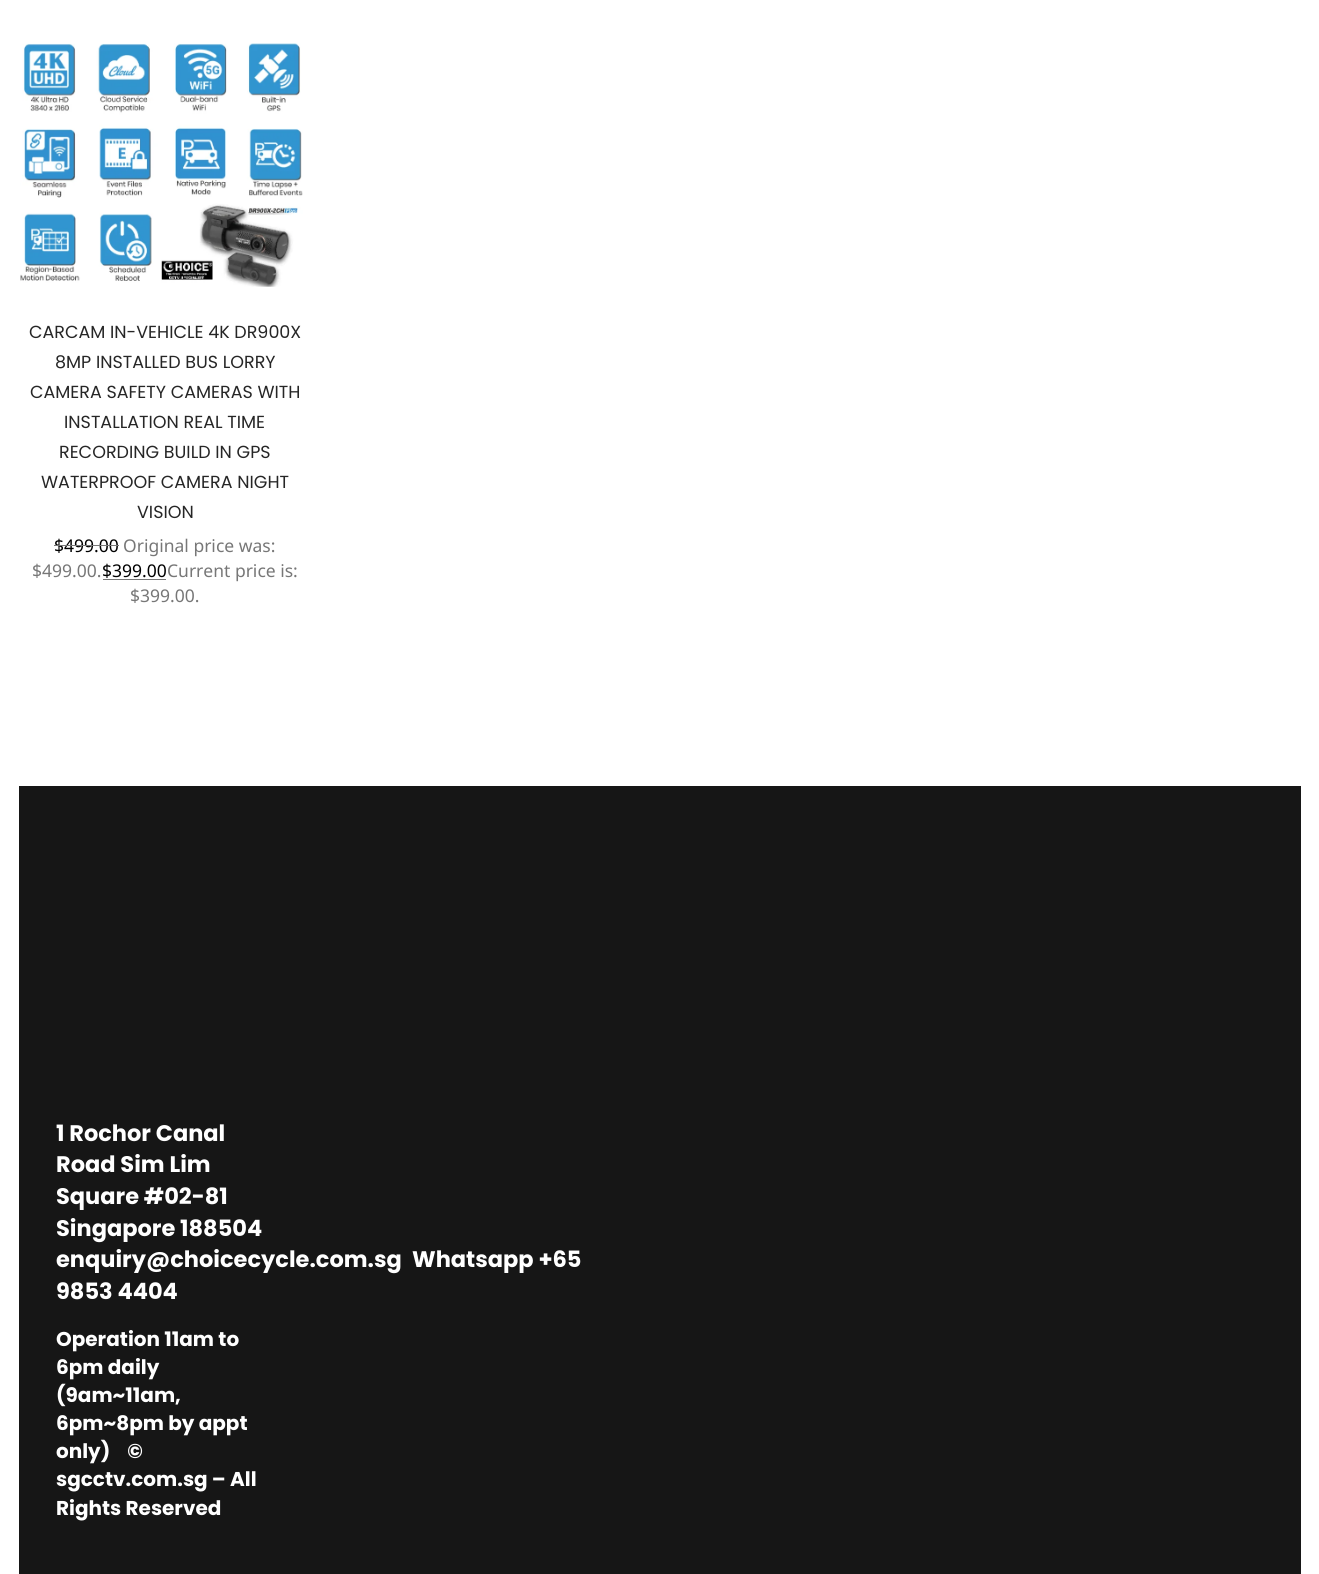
import math
import cairocffi as cairo

surface = cairo.ImageSurface(cairo.FORMAT_RGB24, 1319, 1574)
ctx = cairo.Context(surface)
options = cairo.FontOptions()
options.set_hint_metrics(cairo.HINT_METRICS_OFF)
options.set_hint_style(cairo.HINT_STYLE_NONE)
ctx.set_font_options(options)
ctx.set_miter_limit(4)


def rgb(r, g, b):
    ctx.set_source_rgb(r / 255, g / 255, b / 255)


def face(family, size, italic, bold):
    ctx.select_font_face(family, cairo.FONT_SLANT_ITALIC if italic else cairo.FONT_SLANT_NORMAL, cairo.FONT_WEIGHT_BOLD if bold else cairo.FONT_WEIGHT_NORMAL)
    ctx.set_font_size(size)


def label(x, y, s):
    ctx.move_to(x, y)
    ctx.show_text(s)


def rect(x, y, w, h):
    ctx.rectangle(x, y, w, h)
    ctx.fill()


def image(path, x, y, w, h):
    ctx.save()
    ctx.set_source_surface(cairo.ImageSurface.create_from_png(path), x, y)
    ctx.rectangle(x, y, w, h)
    ctx.fill()
    ctx.restore()


rgb(255, 255, 255)
ctx.paint()
image('image0.png', 20, 43, 283, 244)
face('Poppins', 17.5, 0, 0)
rgb(38, 38, 38)
label(29, 338, 'CARCAM IN-VEHICLE 4K DR900X')
label(55, 368, '8MP INSTALLED BUS LORRY')
label(30, 398, 'CAMERA SAFETY CAMERAS WITH')
label(64, 428, 'INSTALLATION REAL TIME')
label(59, 458, 'RECORDING BUILD IN GPS')
label(41, 488, 'WATERPROOF CAMERA NIGHT')
label(137, 518, 'VISION')
face('Noto Sans', 17.5, 0, 0)
rgb(0, 0, 0)
label(54, 552, '$499.00')
rgb(119, 119, 119)
rect(54, 545, 65, 1)
label(123, 552, 'Original price was:')
label(32, 577, '$499.00.')
rgb(0, 0, 0)
label(102, 577, '$399.00')
rgb(119, 119, 119)
rect(103, 579, 63, 1)
label(167, 577, 'Current price is:')
label(130, 602, '$399.00.')
rgb(22, 22, 22)
rect(19, 786, 1282, 788)
face('Poppins', 22.5, 0, 1)
rgb(255, 255, 255)
label(56, 1141, '1 Rochor Canal')
label(56, 1172, 'Road Sim Lim')
label(56, 1204, 'Square #02-81')
label(56, 1236, 'Singapore 188504')
label(56, 1267, 'enquiry@choicecycle.com.sg')
label(412, 1267, 'Whatsapp +65')
label(56, 1299, '9853 4404')
face('Poppins', 20, 0, 1)
label(56, 1346, 'Operation 11am to')
label(56, 1374, '6pm daily')
label(56, 1402, '(9am~11am,')
label(56, 1430, '6pm~8pm by appt')
label(56, 1458, 'only)    ©')
label(56, 1486, 'sgcctv.com.sg – All')
label(56, 1515, 'Rights Reserved')
surface.write_to_png('render.png')
